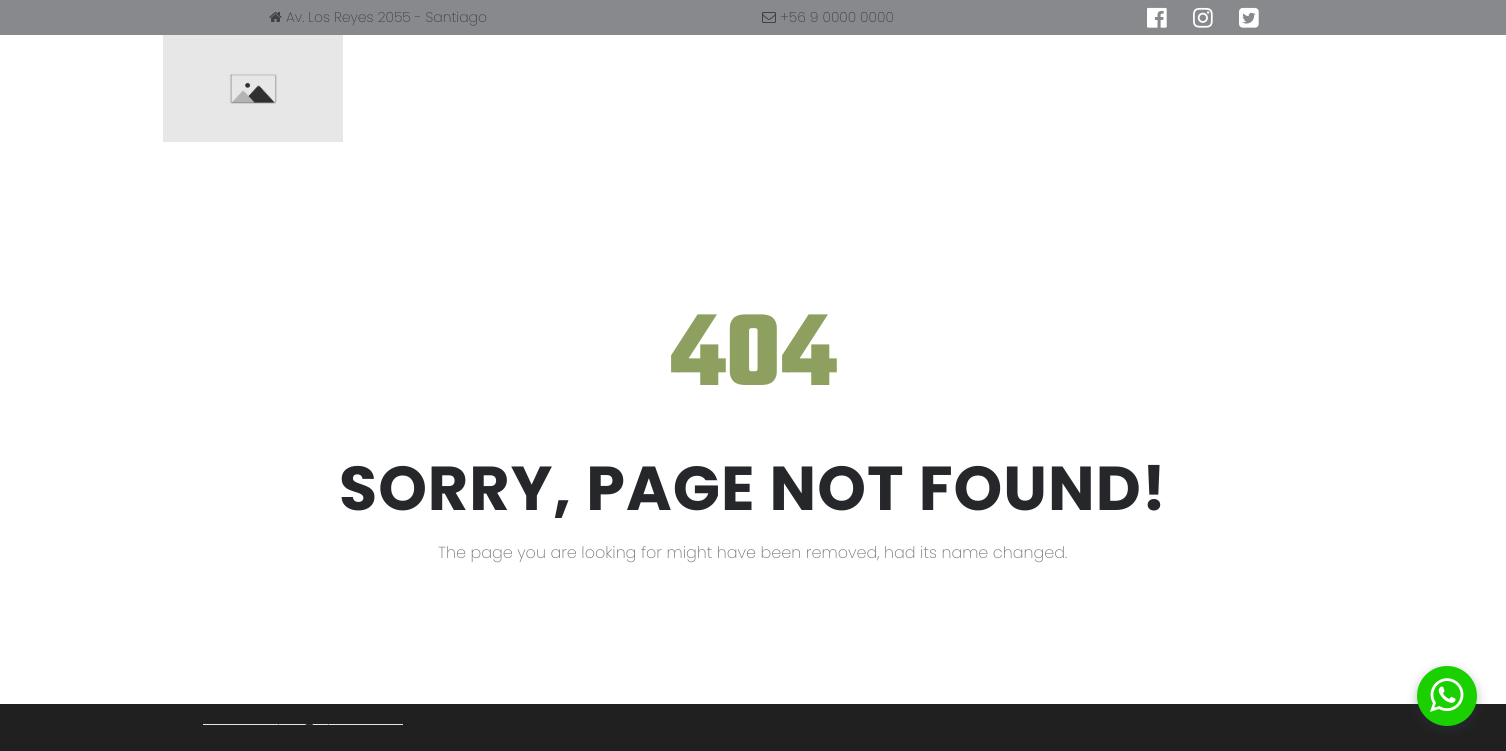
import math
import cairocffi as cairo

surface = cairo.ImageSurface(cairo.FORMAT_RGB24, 1506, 751)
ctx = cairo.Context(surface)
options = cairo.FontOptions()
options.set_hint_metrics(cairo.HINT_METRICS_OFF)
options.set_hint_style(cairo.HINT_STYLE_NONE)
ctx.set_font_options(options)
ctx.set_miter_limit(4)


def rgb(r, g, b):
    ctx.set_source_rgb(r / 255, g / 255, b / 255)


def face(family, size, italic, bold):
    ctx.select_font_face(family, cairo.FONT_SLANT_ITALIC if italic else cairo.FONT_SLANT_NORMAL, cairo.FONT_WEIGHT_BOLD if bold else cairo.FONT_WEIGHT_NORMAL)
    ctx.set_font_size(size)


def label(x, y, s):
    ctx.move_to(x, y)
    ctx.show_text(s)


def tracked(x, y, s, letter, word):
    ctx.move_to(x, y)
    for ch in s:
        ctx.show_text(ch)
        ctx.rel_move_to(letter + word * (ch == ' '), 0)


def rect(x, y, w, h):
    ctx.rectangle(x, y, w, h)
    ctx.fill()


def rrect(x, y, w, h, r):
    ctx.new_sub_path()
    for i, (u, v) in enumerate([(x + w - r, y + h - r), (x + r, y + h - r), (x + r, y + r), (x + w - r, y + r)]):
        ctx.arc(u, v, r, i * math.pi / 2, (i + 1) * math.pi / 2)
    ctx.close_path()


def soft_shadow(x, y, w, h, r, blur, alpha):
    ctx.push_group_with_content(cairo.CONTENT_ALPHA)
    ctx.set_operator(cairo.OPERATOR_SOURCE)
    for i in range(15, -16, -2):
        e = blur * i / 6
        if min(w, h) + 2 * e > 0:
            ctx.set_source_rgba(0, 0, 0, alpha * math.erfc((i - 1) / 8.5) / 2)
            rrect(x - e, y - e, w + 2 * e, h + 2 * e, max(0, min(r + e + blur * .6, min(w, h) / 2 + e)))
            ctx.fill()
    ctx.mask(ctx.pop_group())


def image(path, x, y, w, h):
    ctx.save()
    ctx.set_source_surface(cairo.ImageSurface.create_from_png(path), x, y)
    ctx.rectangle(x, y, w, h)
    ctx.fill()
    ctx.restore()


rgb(255, 255, 255)
ctx.paint()
rgb(136, 137, 140)
rect(0, 0, 1506, 35)
image('image0.png', 269, 12, 13, 10)
face('Poppins ExtraLight', 14, 0, 0)
rgb(63, 65, 70)
label(286, 22, 'Av. Los Reyes 2055 - Santiago')
image('image1.png', 762, 12, 14, 11)
label(780, 22, '+56 9 0000 0000')
image('image2.png', 1147, 7, 20, 21)
image('image3.png', 1193, 7, 20, 21)
image('image4.png', 1239, 7, 20, 21)
image('image5.png', 163, 35, 180, 107)
face('Teko', 110, 0, 1)
rgb(141, 160, 96)
label(670, 385, '404')
face('Poppins', 62, 0, 1)
rgb(38, 39, 42)
tracked(339, 510, 'SORRY, PAGE NOT FOUND!', 1, 0)
face('Poppins ExtraLight', 16, 0, 0)
rgb(119, 119, 119)
label(438, 558, 'The page you are looking for might have been removed, had its name changed.')
rgb(32, 32, 32)
rect(0, 704, 1506, 47)
rgb(46, 58, 70)
soft_shadow(1417, 670, 60, 60, 30, 5, 0.35)
rgb(27, 208, 0)
ctx.arc(1447, 696, 30, 0, 2 * math.pi)
ctx.fill()
image('image6.png', 1430, 678, 34, 34)
image('image7.png', 203, 724, 200, 1)
surface.write_to_png('render.png')
